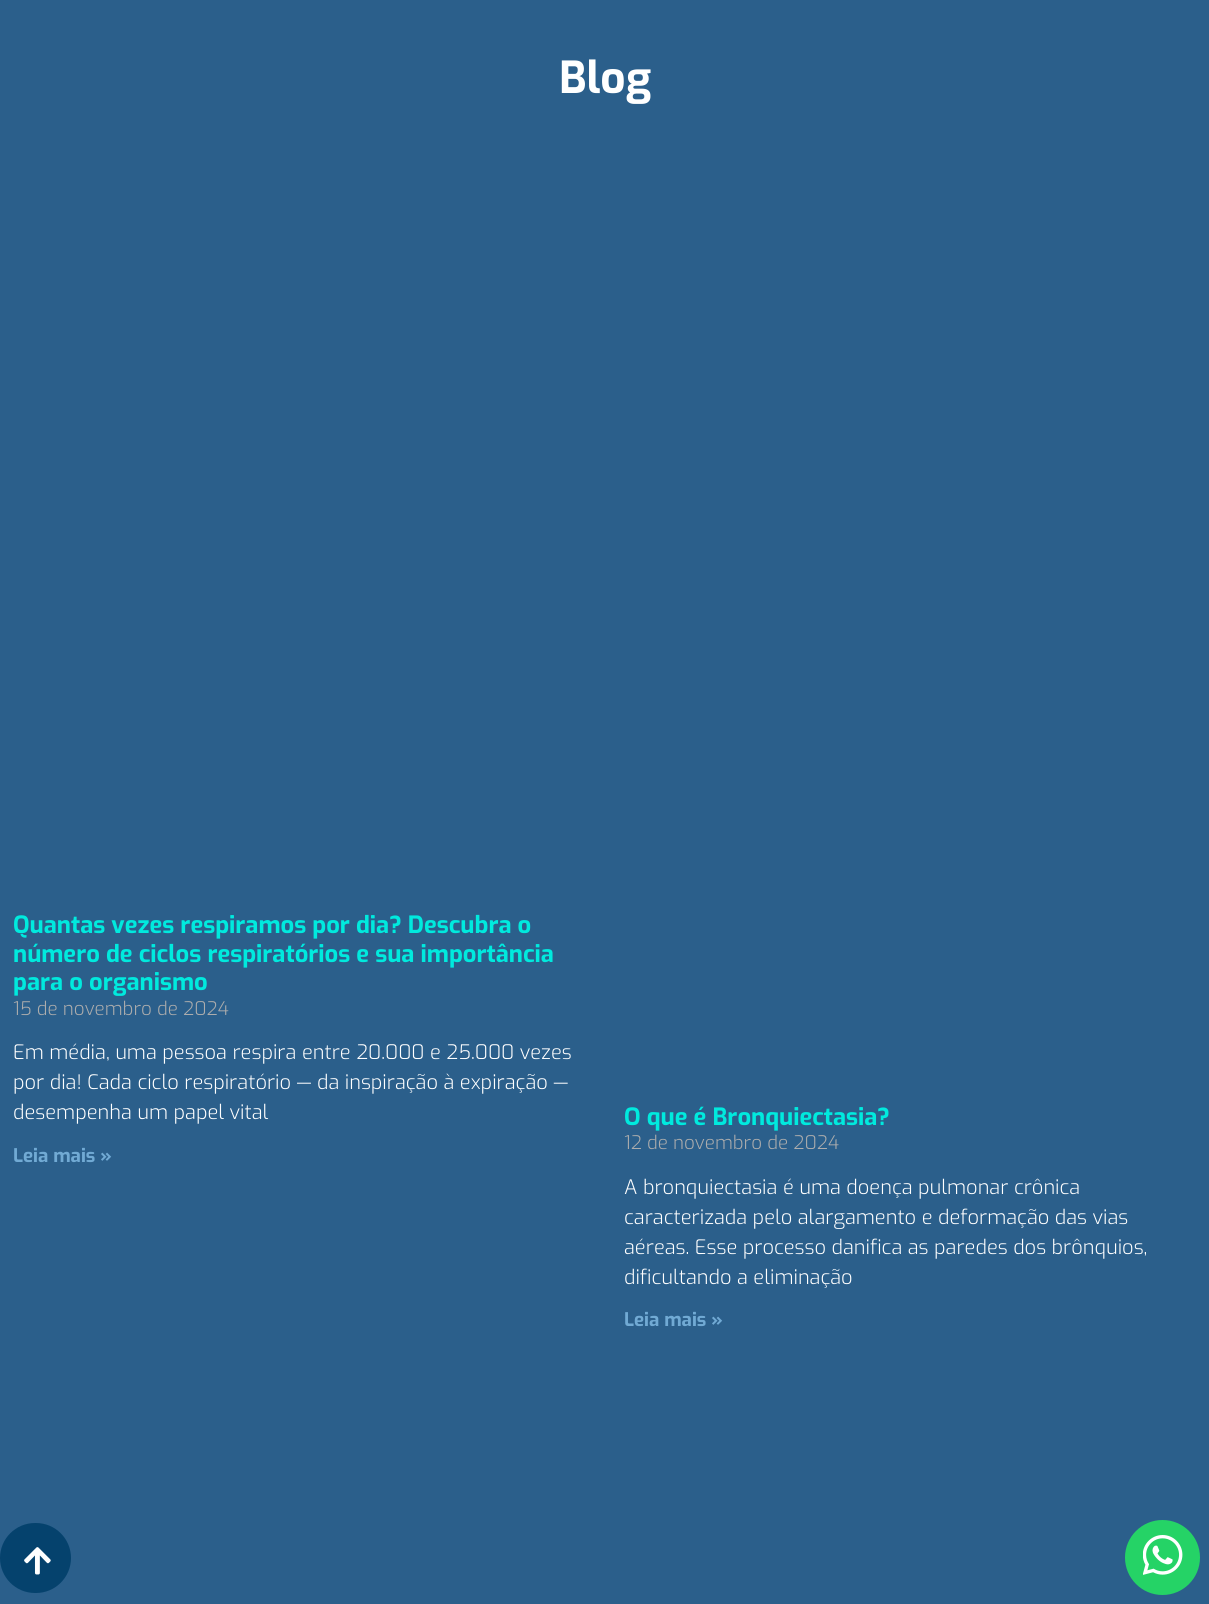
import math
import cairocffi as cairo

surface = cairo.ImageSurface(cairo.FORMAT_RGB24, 1209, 1604)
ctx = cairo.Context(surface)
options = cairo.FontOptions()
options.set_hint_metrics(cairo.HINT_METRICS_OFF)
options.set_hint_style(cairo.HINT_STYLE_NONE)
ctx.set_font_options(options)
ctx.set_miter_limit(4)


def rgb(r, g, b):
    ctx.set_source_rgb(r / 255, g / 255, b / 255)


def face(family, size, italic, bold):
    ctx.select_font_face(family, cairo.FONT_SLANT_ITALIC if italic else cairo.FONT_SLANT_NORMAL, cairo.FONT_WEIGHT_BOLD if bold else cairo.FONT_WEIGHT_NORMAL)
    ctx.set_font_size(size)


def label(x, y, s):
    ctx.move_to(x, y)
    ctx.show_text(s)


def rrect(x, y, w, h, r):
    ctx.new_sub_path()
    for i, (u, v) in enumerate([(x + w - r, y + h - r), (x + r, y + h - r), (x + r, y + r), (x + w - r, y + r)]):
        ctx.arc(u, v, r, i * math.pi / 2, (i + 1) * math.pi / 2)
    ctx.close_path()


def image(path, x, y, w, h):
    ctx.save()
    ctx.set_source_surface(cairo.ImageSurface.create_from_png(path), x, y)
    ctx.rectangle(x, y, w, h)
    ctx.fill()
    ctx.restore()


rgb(43, 95, 139)
ctx.paint()
face('Exo', 44, 0, 1)
rgb(255, 255, 255)
label(559, 93, 'Blog')
face('Exo', 23.75, 0, 1)
rgb(0, 234, 222)
label(13, 933, 'Quantas vezes respiramos por dia? Descubra o')
label(13, 962, 'número de ciclos respiratórios e sua importância')
label(13, 990, 'para o organismo')
face('Exo Light', 18.75, 0, 0)
rgb(173, 173, 173)
label(13, 1015, '15 de novembro de 2024')
face('Exo Light', 20, 0, 0)
rgb(255, 255, 255)
label(13, 1059, 'Em média, uma pessoa respira entre 20.000 e 25.000 vezes')
label(13, 1089, 'por dia! Cada ciclo respiratório — da inspiração à expiração —')
label(13, 1119, 'desempenha um papel vital')
face('Exo', 18.75, 0, 1)
rgb(113, 170, 212)
label(13, 1162, 'Leia mais »')
face('Exo', 23.75, 0, 1)
rgb(0, 234, 222)
label(624, 1125, 'O que é Bronquiectasia?')
face('Exo Light', 18.75, 0, 0)
rgb(173, 173, 173)
label(624, 1149, '12 de novembro de 2024')
face('Exo Light', 20, 0, 0)
rgb(255, 255, 255)
label(624, 1194, 'A bronquiectasia é uma doença pulmonar crônica')
label(624, 1224, 'caracterizada pelo alargamento e deformação das vias')
label(624, 1254, 'aéreas. Esse processo danifica as paredes dos brônquios,')
label(624, 1284, 'dificultando a eliminação')
face('Exo', 18.75, 0, 1)
rgb(113, 170, 212)
label(624, 1326, 'Leia mais »')
rgb(37, 211, 102)
ctx.new_path()
ctx.arc(1162.5, 1557.5, 37.5, 0, 2 * math.pi)
ctx.fill()
image('image0.png', 1143, 1535, 40, 40)
rgb(5, 66, 109)
rrect(0, 1523, 71, 70, 35)
ctx.fill()
image('image1.png', 24, 1547, 27, 28)
surface.write_to_png('render.png')
